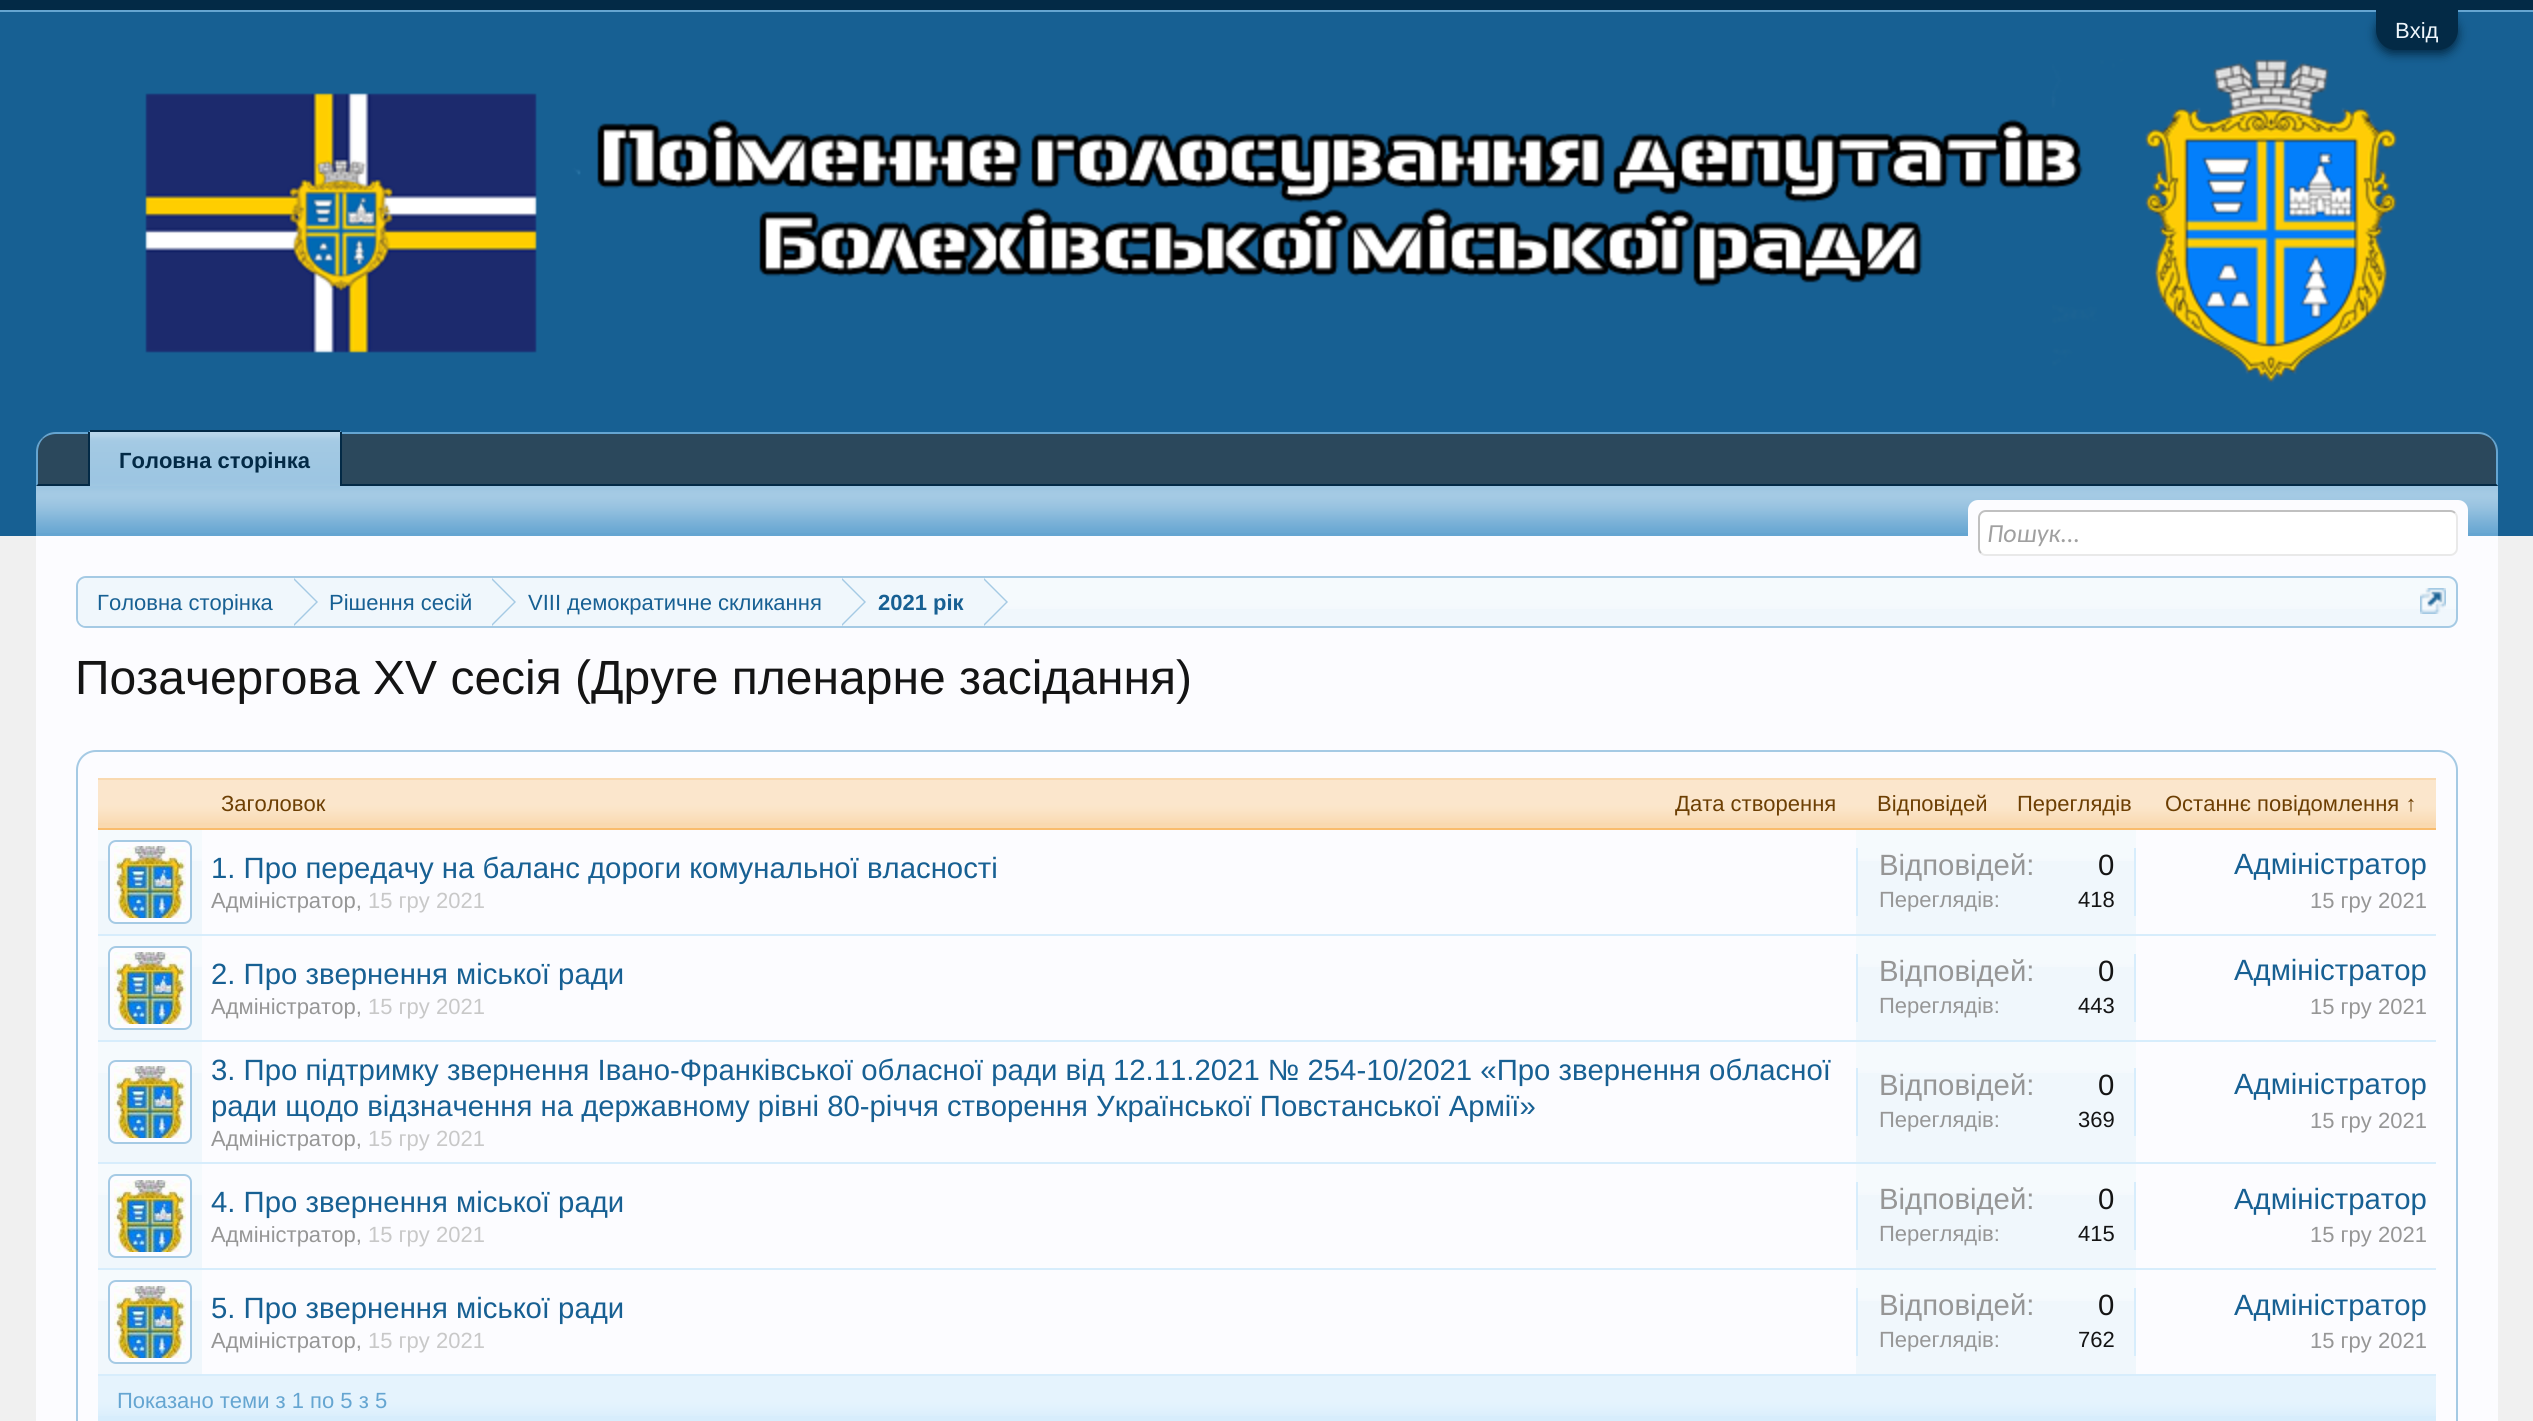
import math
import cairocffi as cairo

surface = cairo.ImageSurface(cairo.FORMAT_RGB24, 2533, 1421)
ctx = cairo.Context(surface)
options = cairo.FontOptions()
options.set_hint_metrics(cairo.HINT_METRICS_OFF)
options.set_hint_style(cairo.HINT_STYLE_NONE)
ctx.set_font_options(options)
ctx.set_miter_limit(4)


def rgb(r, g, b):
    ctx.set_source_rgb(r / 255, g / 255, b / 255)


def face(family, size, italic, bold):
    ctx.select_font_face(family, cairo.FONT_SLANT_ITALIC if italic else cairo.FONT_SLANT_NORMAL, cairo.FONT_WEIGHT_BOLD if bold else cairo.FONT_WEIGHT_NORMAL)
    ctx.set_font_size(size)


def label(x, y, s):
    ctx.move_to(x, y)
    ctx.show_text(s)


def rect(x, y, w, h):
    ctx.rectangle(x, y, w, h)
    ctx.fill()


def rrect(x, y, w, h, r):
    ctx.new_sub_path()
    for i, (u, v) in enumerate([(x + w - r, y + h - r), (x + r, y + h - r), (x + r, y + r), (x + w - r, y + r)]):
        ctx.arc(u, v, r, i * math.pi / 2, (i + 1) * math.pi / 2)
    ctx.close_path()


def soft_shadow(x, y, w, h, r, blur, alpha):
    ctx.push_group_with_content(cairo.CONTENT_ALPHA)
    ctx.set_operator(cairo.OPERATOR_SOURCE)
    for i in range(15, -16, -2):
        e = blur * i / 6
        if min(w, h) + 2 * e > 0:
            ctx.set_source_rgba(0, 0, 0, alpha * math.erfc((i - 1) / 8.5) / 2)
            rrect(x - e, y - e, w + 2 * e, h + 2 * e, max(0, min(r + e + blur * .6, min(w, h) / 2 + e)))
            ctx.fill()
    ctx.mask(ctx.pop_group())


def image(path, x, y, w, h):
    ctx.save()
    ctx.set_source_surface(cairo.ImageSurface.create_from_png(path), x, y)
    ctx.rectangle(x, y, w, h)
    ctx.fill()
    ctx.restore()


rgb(240, 240, 240)
ctx.paint()
rgb(3, 42, 70)
rect(0, 0, 2533, 10)
rgb(101, 165, 209)
rect(0, 10, 2533, 2)
rgb(23, 96, 147)
rect(0, 12, 2533, 524)
image('image0.png', 145, 59, 2252, 324)
rgb(3, 42, 70)
soft_shadow(2376, 14, 82, 40, 20, 5, 1)
rgb(3, 42, 70)
ctx.new_path()
ctx.move_to(2376, 10)
ctx.line_to(2458, 10)
ctx.line_to(2458, 30)
ctx.curve_to(2458, 41, 2449, 50, 2438, 50)
ctx.line_to(2396, 50)
ctx.curve_to(2385, 50, 2376, 41, 2376, 30)
ctx.close_path()
ctx.fill()
face('Liberation Sans', 22, 0, 0)
rgb(240, 247, 252)
label(2395, 38, 'Вхід')
rgb(43, 72, 92)
ctx.new_path()
ctx.move_to(56, 432)
ctx.line_to(2478, 432)
ctx.curve_to(2489, 432, 2498, 441, 2498, 452)
ctx.line_to(2498, 486)
ctx.line_to(36, 486)
ctx.line_to(36, 452)
ctx.curve_to(36, 441, 45, 432, 56, 432)
ctx.close_path()
ctx.fill()
rgb(101, 165, 209)
ctx.new_path()
ctx.move_to(56, 432)
ctx.curve_to(50, 432, 46, 434, 42, 438)
ctx.line_to(43, 439)
ctx.curve_to(46, 436, 51, 434, 56, 434)
ctx.line_to(2478, 434)
ctx.curve_to(2483, 434, 2488, 436, 2491, 439)
ctx.line_to(2492, 438)
ctx.curve_to(2488, 434, 2484, 432, 2478, 432)
ctx.close_path()
ctx.fill()
ctx.new_path()
ctx.move_to(2498, 486)
ctx.line_to(2498, 452)
ctx.curve_to(2498, 446, 2496, 442, 2492, 438)
ctx.line_to(2491, 439)
ctx.curve_to(2494, 442, 2496, 447, 2496, 452)
ctx.line_to(2496, 484)
ctx.close_path()
ctx.fill()
rgb(3, 42, 70)
ctx.new_path()
ctx.move_to(2498, 486)
ctx.line_to(2496, 484)
ctx.line_to(38, 484)
ctx.line_to(36, 486)
ctx.close_path()
ctx.fill()
rgb(101, 165, 209)
ctx.new_path()
ctx.move_to(36, 486)
ctx.line_to(38, 484)
ctx.line_to(38, 452)
ctx.curve_to(38, 447, 40, 442, 43, 439)
ctx.line_to(42, 438)
ctx.curve_to(38, 442, 36, 446, 36, 452)
ctx.close_path()
ctx.fill()
ctx.new_path()
ctx.move_to(92, 430)
ctx.line_to(338, 430)
ctx.curve_to(340, 430, 342, 432, 342, 434)
ctx.line_to(342, 486)
ctx.line_to(88, 486)
ctx.line_to(88, 434)
ctx.curve_to(88, 432, 90, 430, 92, 430)
ctx.close_path()
ctx.fill()
image('image1.png', 90, 432, 250, 54)
rgb(3, 42, 70)
rect(90, 430, 250, 2)
rect(340, 432, 2, 54)
rect(88, 432, 2, 54)
face('Liberation Sans', 22, 0, 1)
label(119, 468, 'Головна сторінка')
rgb(101, 165, 209)
rect(36, 486, 2462, 50)
image('image2.png', 36, 486, 2462, 47)
rgb(252, 252, 255)
rect(36, 536, 2462, 885)
rrect(1968, 500, 500, 56, 10)
ctx.fill()
rgb(255, 255, 255)
rrect(1978, 510, 480, 46, 8)
ctx.fill()
ctx.new_path()
ctx.move_to(2455, 513)
ctx.curve_to(2456.5, 514.5, 2457, 516, 2457, 518)
ctx.line_to(2457, 548)
ctx.curve_to(2457, 550, 2456.5, 551.5, 2455, 553)
ctx.curve_to(2453.5, 554.5, 2452, 555, 2450, 555)
ctx.line_to(1986, 555)
ctx.curve_to(1984, 555, 1982.5, 554.5, 1981, 553)
rgb(233, 233, 233)
ctx.stroke()
ctx.new_path()
ctx.move_to(1981, 553)
ctx.curve_to(1979.5, 551.5, 1979, 550, 1979, 548)
ctx.line_to(1979, 518)
ctx.curve_to(1979, 516, 1979.5, 514.5, 1981, 513)
ctx.curve_to(1982.5, 511.5, 1984, 511, 1986, 511)
ctx.line_to(2450, 511)
ctx.curve_to(2452, 511, 2453.5, 511.5, 2455, 513)
rgb(192, 192, 192)
ctx.stroke()
face('Carlito', 26, 1, 0)
rgb(160, 160, 160)
label(1987, 542, 'Пошук...')
rgb(240, 247, 252)
rrect(76, 576, 2382, 52, 10)
ctx.fill()
image('image3.png', 76, 578, 2382, 31)
rrect(77, 577, 2380, 50, 9)
rgb(165, 202, 228)
ctx.stroke()
ctx.save()
rrect(78, 578, 2378, 48, 8)
ctx.clip()
rgb(240, 247, 252)
ctx.new_path()
ctx.move_to(88, 578)
ctx.line_to(294, 578)
ctx.line_to(294, 628)
ctx.line_to(88, 628)
ctx.curve_to(82.5, 628, 78, 623.5, 78, 618)
ctx.line_to(78, 588)
ctx.curve_to(78, 582.5, 82.5, 578, 88, 578)
ctx.close_path()
ctx.fill()
ctx.restore()
face('Liberation Sans', 22, 0, 0)
rgb(23, 96, 147)
label(97, 610, 'Головна сторінка')
rgb(240, 247, 252)
rect(294, 578, 690, 31)
rgb(165, 202, 228)
ctx.new_path()
ctx.move_to(294, 626)
ctx.line_to(294, 578)
ctx.line_to(318, 602)
ctx.close_path()
ctx.fill()
rgb(240, 247, 252)
ctx.new_path()
ctx.move_to(292, 626)
ctx.line_to(292, 578)
ctx.line_to(316, 602)
ctx.close_path()
ctx.fill()
rgb(23, 96, 147)
label(329, 610, 'Рішення сесій')
rgb(165, 202, 228)
ctx.new_path()
ctx.move_to(492, 626)
ctx.line_to(492, 578)
ctx.line_to(516, 602)
ctx.close_path()
ctx.fill()
rgb(240, 247, 252)
ctx.new_path()
ctx.move_to(490, 626)
ctx.line_to(490, 578)
ctx.line_to(514, 602)
ctx.close_path()
ctx.fill()
rgb(23, 96, 147)
label(528, 610, 'VIII демократичне скликання')
rgb(165, 202, 228)
ctx.new_path()
ctx.move_to(842, 626)
ctx.line_to(842, 578)
ctx.line_to(866, 602)
ctx.close_path()
ctx.fill()
rgb(240, 247, 252)
ctx.new_path()
ctx.move_to(840, 626)
ctx.line_to(840, 578)
ctx.line_to(864, 602)
ctx.close_path()
ctx.fill()
face('Liberation Sans', 22, 0, 1)
rgb(23, 96, 147)
label(878, 610, '2021 рік')
rgb(165, 202, 228)
ctx.new_path()
ctx.move_to(984, 626)
ctx.line_to(984, 578)
ctx.line_to(1008, 602)
ctx.close_path()
ctx.fill()
rgb(240, 247, 252)
ctx.new_path()
ctx.move_to(982, 626)
ctx.line_to(982, 578)
ctx.line_to(1006, 602)
ctx.close_path()
ctx.fill()
image('image4.png', 2420, 588, 26, 26)
face('Liberation Sans', 48, 0, 0)
rgb(20, 20, 20)
label(75, 694, 'Позачергова XV сесія (Друге пленарне засідання)')
rrect(77, 751, 2380, 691, 19)
rgb(165, 202, 228)
ctx.stroke()
rgb(249, 217, 176)
rect(98, 778, 2338, 50)
image('image5.png', 98, 780, 2338, 43)
rgb(249, 188, 109)
rect(98, 828, 2338, 2)
face('Liberation Sans', 22, 0, 0)
rgb(109, 63, 3)
label(221, 811, 'Заголовок')
label(1675, 811, 'Дата створення')
label(1877, 811, 'Відповідей')
label(2017, 811, 'Переглядів')
label(2165, 811, 'Останнє повідомлення ↑')
rgb(215, 237, 252)
rect(98, 934, 2338, 2)
rgb(240, 247, 252)
rect(98, 830, 104, 104)
image('image6.png', 98, 830, 104, 31)
rgb(252, 252, 255)
rrect(109, 841, 82, 82, 7)
ctx.fill_preserve()
rgb(165, 202, 228)
ctx.stroke()
image('image7.png', 114, 846, 72, 72)
face('Liberation Sans', 29.33, 0, 0)
rgb(23, 96, 147)
label(211, 878, '1. Про передачу на баланс дороги комунальної власності')
face('Liberation Sans', 22, 0, 0)
rgb(150, 150, 150)
label(211, 908, 'Адміністратор,')
rgb(200, 200, 200)
label(368, 908, '15 гру 2021')
rgb(240, 247, 252)
rect(1856, 830, 280, 104)
image('image8.png', 1856, 830, 280, 31)
rgb(215, 237, 252)
rect(2134, 848, 2, 68)
rect(1856, 848, 2, 68)
face('Liberation Sans', 29.33, 0, 0)
rgb(150, 150, 150)
label(1879, 875, 'Відповідей:')
rgb(20, 20, 20)
label(2098, 875, '0')
face('Liberation Sans', 22, 0, 0)
rgb(150, 150, 150)
label(1879, 907, 'Переглядів:')
rgb(20, 20, 20)
label(2078, 907, '418')
face('Liberation Sans', 29.33, 0, 0)
rgb(23, 96, 147)
label(2234, 874, 'Адміністратор')
face('Liberation Sans', 22, 0, 0)
rgb(150, 150, 150)
label(2310, 908, '15 гру 2021')
rgb(215, 237, 252)
rect(98, 1040, 2338, 2)
rgb(240, 247, 252)
rect(98, 936, 104, 104)
image('image6.png', 98, 936, 104, 31)
rgb(252, 252, 255)
rrect(109, 947, 82, 82, 7)
ctx.fill_preserve()
rgb(165, 202, 228)
ctx.stroke()
image('image7.png', 114, 952, 72, 72)
face('Liberation Sans', 29.33, 0, 0)
rgb(23, 96, 147)
label(211, 984, '2. Про звернення міської ради')
face('Liberation Sans', 22, 0, 0)
rgb(150, 150, 150)
label(211, 1014, 'Адміністратор,')
rgb(200, 200, 200)
label(368, 1014, '15 гру 2021')
rgb(240, 247, 252)
rect(1856, 936, 280, 104)
image('image8.png', 1856, 936, 280, 31)
rgb(215, 237, 252)
rect(2134, 954, 2, 68)
rect(1856, 954, 2, 68)
face('Liberation Sans', 29.33, 0, 0)
rgb(150, 150, 150)
label(1879, 981, 'Відповідей:')
rgb(20, 20, 20)
label(2098, 981, '0')
face('Liberation Sans', 22, 0, 0)
rgb(150, 150, 150)
label(1879, 1013, 'Переглядів:')
rgb(20, 20, 20)
label(2078, 1013, '443')
face('Liberation Sans', 29.33, 0, 0)
rgb(23, 96, 147)
label(2234, 980, 'Адміністратор')
face('Liberation Sans', 22, 0, 0)
rgb(150, 150, 150)
label(2310, 1014, '15 гру 2021')
rgb(215, 237, 252)
rect(98, 1162, 2338, 2)
rgb(240, 247, 252)
rect(98, 1042, 104, 120)
image('image6.png', 98, 1042, 104, 31)
rgb(252, 252, 255)
rrect(109, 1061, 82, 82, 7)
ctx.fill_preserve()
rgb(165, 202, 228)
ctx.stroke()
image('image7.png', 114, 1066, 72, 72)
face('Liberation Sans', 29.33, 0, 0)
rgb(23, 96, 147)
label(211, 1080, '3. Про підтримку звернення Івано-Франківської обласної ради від 12.11.2021 № 254-10/2021 «Про звернення обласної')
label(211, 1116, 'ради щодо відзначення на державному рівні 80-річчя створення Української Повстанської Армії»')
face('Liberation Sans', 22, 0, 0)
rgb(150, 150, 150)
label(211, 1146, 'Адміністратор,')
rgb(200, 200, 200)
label(368, 1146, '15 гру 2021')
rgb(240, 247, 252)
rect(1856, 1042, 280, 120)
image('image8.png', 1856, 1042, 280, 31)
rgb(215, 237, 252)
rect(2134, 1068, 2, 68)
rect(1856, 1068, 2, 68)
face('Liberation Sans', 29.33, 0, 0)
rgb(150, 150, 150)
label(1879, 1095, 'Відповідей:')
rgb(20, 20, 20)
label(2098, 1095, '0')
face('Liberation Sans', 22, 0, 0)
rgb(150, 150, 150)
label(1879, 1127, 'Переглядів:')
rgb(20, 20, 20)
label(2078, 1127, '369')
face('Liberation Sans', 29.33, 0, 0)
rgb(23, 96, 147)
label(2234, 1094, 'Адміністратор')
face('Liberation Sans', 22, 0, 0)
rgb(150, 150, 150)
label(2310, 1128, '15 гру 2021')
rgb(215, 237, 252)
rect(98, 1268, 2338, 2)
rgb(240, 247, 252)
rect(98, 1164, 104, 104)
image('image6.png', 98, 1164, 104, 31)
rgb(252, 252, 255)
rrect(109, 1175, 82, 82, 7)
ctx.fill_preserve()
rgb(165, 202, 228)
ctx.stroke()
image('image7.png', 114, 1180, 72, 72)
face('Liberation Sans', 29.33, 0, 0)
rgb(23, 96, 147)
label(211, 1212, '4. Про звернення міської ради')
face('Liberation Sans', 22, 0, 0)
rgb(150, 150, 150)
label(211, 1242, 'Адміністратор,')
rgb(200, 200, 200)
label(368, 1242, '15 гру 2021')
rgb(240, 247, 252)
rect(1856, 1164, 280, 104)
image('image8.png', 1856, 1164, 280, 31)
rgb(215, 237, 252)
rect(2134, 1182, 2, 68)
rect(1856, 1182, 2, 68)
face('Liberation Sans', 29.33, 0, 0)
rgb(150, 150, 150)
label(1879, 1209, 'Відповідей:')
rgb(20, 20, 20)
label(2098, 1209, '0')
face('Liberation Sans', 22, 0, 0)
rgb(150, 150, 150)
label(1879, 1241, 'Переглядів:')
rgb(20, 20, 20)
label(2078, 1241, '415')
face('Liberation Sans', 29.33, 0, 0)
rgb(23, 96, 147)
label(2234, 1209, 'Адміністратор')
face('Liberation Sans', 22, 0, 0)
rgb(150, 150, 150)
label(2310, 1242, '15 гру 2021')
rgb(215, 237, 252)
rect(98, 1374, 2338, 47)
rgb(240, 247, 252)
rect(98, 1270, 104, 104)
image('image6.png', 98, 1270, 104, 31)
rgb(252, 252, 255)
rrect(109, 1281, 82, 82, 7)
ctx.fill_preserve()
rgb(165, 202, 228)
ctx.stroke()
image('image7.png', 114, 1286, 72, 72)
face('Liberation Sans', 29.33, 0, 0)
rgb(23, 96, 147)
label(211, 1318, '5. Про звернення міської ради')
face('Liberation Sans', 22, 0, 0)
rgb(150, 150, 150)
label(211, 1348, 'Адміністратор,')
rgb(200, 200, 200)
label(368, 1348, '15 гру 2021')
rgb(240, 247, 252)
rect(1856, 1270, 280, 104)
image('image8.png', 1856, 1270, 280, 31)
rgb(215, 237, 252)
rect(2134, 1288, 2, 68)
rect(1856, 1288, 2, 68)
face('Liberation Sans', 29.33, 0, 0)
rgb(150, 150, 150)
label(1879, 1315, 'Відповідей:')
rgb(20, 20, 20)
label(2098, 1315, '0')
face('Liberation Sans', 22, 0, 0)
rgb(150, 150, 150)
label(1879, 1347, 'Переглядів:')
rgb(20, 20, 20)
label(2078, 1347, '762')
face('Liberation Sans', 29.33, 0, 0)
rgb(23, 96, 147)
label(2234, 1315, 'Адміністратор')
face('Liberation Sans', 22, 0, 0)
rgb(150, 150, 150)
label(2310, 1348, '15 гру 2021')
image('image9.png', 98, 1376, 2338, 40)
rgb(101, 165, 209)
label(117, 1408, 'Показано теми з 1 по 5 з 5')
surface.write_to_png('render.png')
